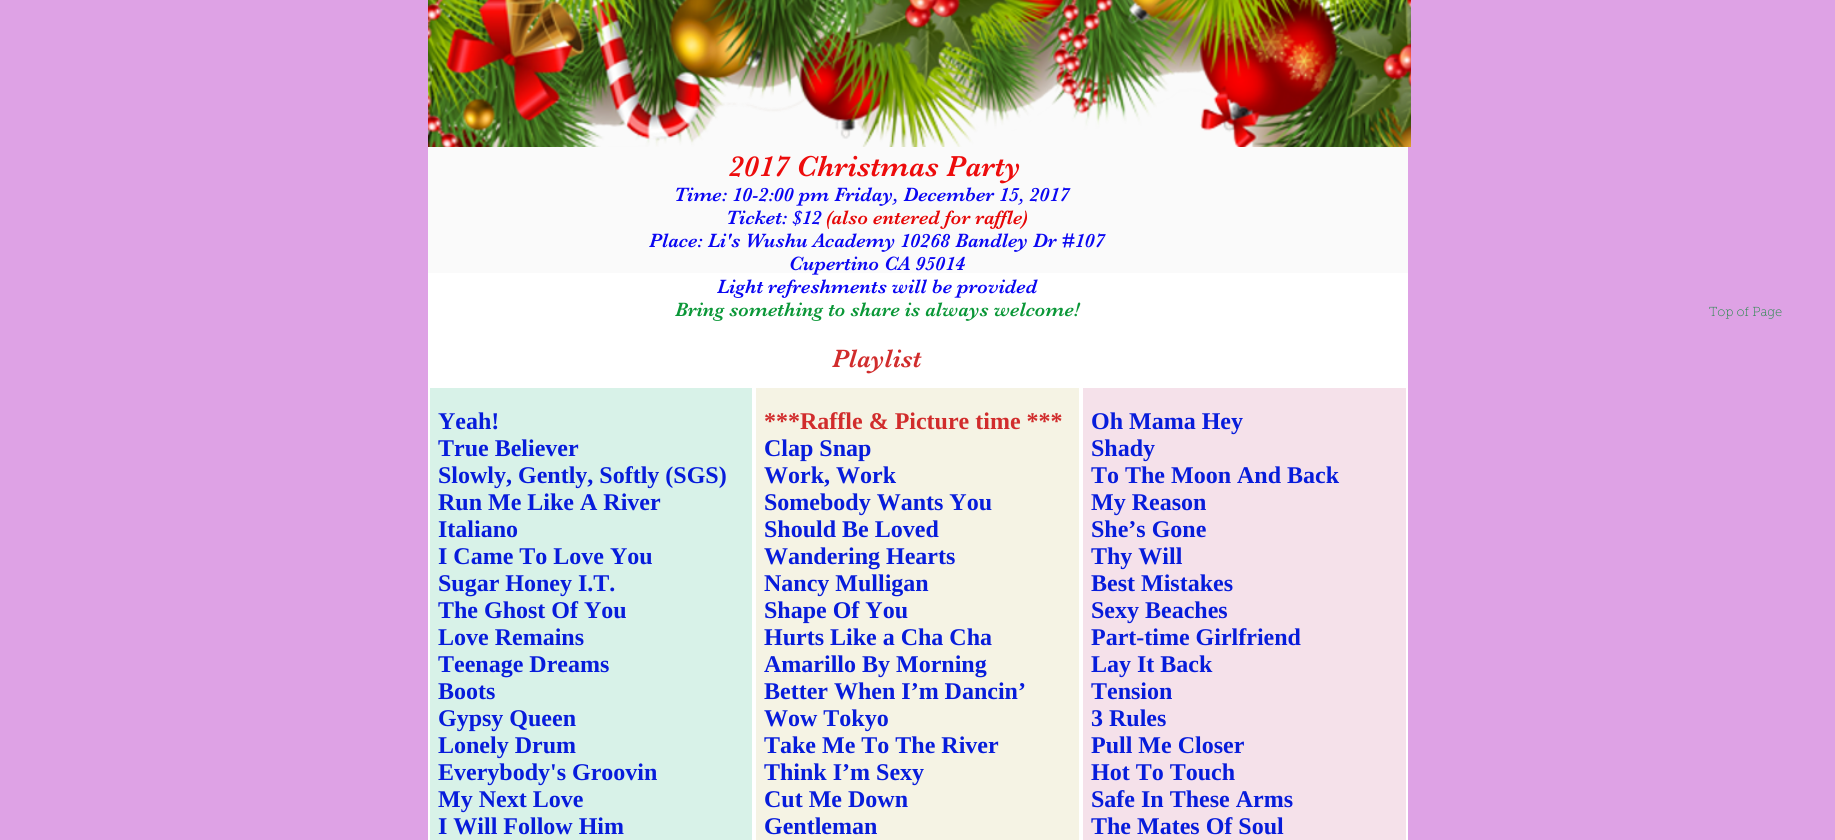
import math
import cairocffi as cairo

surface = cairo.ImageSurface(cairo.FORMAT_RGB24, 1835, 840)
ctx = cairo.Context(surface)
options = cairo.FontOptions()
options.set_hint_metrics(cairo.HINT_METRICS_OFF)
options.set_hint_style(cairo.HINT_STYLE_NONE)
ctx.set_font_options(options)
ctx.set_miter_limit(4)


def rgb(r, g, b):
    ctx.set_source_rgb(r / 255, g / 255, b / 255)


def face(family, size, italic, bold):
    ctx.select_font_face(family, cairo.FONT_SLANT_ITALIC if italic else cairo.FONT_SLANT_NORMAL, cairo.FONT_WEIGHT_BOLD if bold else cairo.FONT_WEIGHT_NORMAL)
    ctx.set_font_size(size)


def label(x, y, s):
    ctx.move_to(x, y)
    ctx.show_text(s)


def rect(x, y, w, h):
    ctx.rectangle(x, y, w, h)
    ctx.fill()


def image(path, x, y, w, h):
    ctx.save()
    ctx.set_source_surface(cairo.ImageSurface.create_from_png(path), x, y)
    ctx.rectangle(x, y, w, h)
    ctx.fill()
    ctx.restore()


rgb(222, 162, 229)
ctx.paint()
rgb(250, 250, 250)
rect(428, 68, 980, 205)
image('image0.png', 428, 0, 983, 147)
face('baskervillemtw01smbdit', 30, 0, 0)
rgb(237, 12, 12)
label(729, 176, '2017 Christmas Party')
face('baskervillemtw01smbdit', 20, 0, 0)
rgb(11, 7, 242)
label(674, 201, 'Time: 10-2:00 pm Friday, December 15, 2017')
label(726, 224, 'Ticket: $12')
rgb(230, 7, 7)
label(826, 224, '(also entered for raffle)')
rgb(11, 7, 242)
label(649, 247, 'Place: Li\'s Wushu Academy 10268 Bandley Dr #107')
rgb(255, 255, 255)
rect(428, 273, 980, 567)
rgb(11, 7, 242)
label(789, 270, 'Cupertino CA 95014')
label(717, 293, 'Light refreshments will be provided')
rgb(10, 151, 55)
label(675, 316, 'Bring something to share is always welcome!')
face('baskervillemtw01smbdit', 26, 0, 0)
rgb(209, 44, 44)
label(832, 367, 'Playlist')
rgb(216, 242, 232)
rect(430, 388, 322, 452)
face('Liberation Serif', 24, 0, 1)
rgb(7, 28, 219)
label(438, 429, 'Yeah!')
label(438, 456, 'True Believer')
label(438, 483, 'Slowly, Gently, Softly (SGS)')
label(438, 510, 'Run Me Like A River')
label(438, 537, 'Italiano')
label(438, 564, 'I Came To Love You')
label(438, 591, 'Sugar Honey I.T.')
label(438, 618, 'The Ghost Of You')
label(438, 645, 'Love Remains')
label(438, 672, 'Teenage Dreams')
label(438, 699, 'Boots')
label(438, 726, 'Gypsy Queen')
label(438, 753, 'Lonely Drum')
label(438, 780, 'Everybody\'s Groovin')
label(438, 807, 'My Next Love')
label(438, 834, 'I Will Follow Him')
rgb(245, 243, 228)
rect(756, 388, 323, 452)
rgb(209, 44, 44)
label(764, 429, '***Raffle & Picture time ***')
rgb(7, 28, 219)
label(764, 456, 'Clap Snap')
label(764, 483, 'Work, Work')
label(764, 510, 'Somebody Wants You')
label(764, 537, 'Should Be Loved')
label(764, 564, 'Wandering Hearts')
label(764, 591, 'Nancy Mulligan')
label(764, 618, 'Shape Of You')
label(764, 645, 'Hurts Like a Cha Cha')
label(764, 672, 'Amarillo By Morning')
label(764, 699, 'Better When I’m Dancin’')
label(764, 726, 'Wow Tokyo')
label(764, 753, 'Take Me To The River')
label(764, 780, 'Think I’m Sexy')
label(764, 807, 'Cut Me Down')
label(764, 834, 'Gentleman')
rgb(245, 225, 234)
rect(1083, 388, 323, 452)
rgb(7, 28, 219)
label(1091, 429, 'Oh Mama Hey')
label(1091, 456, 'Shady')
label(1091, 483, 'To The Moon And Back')
label(1091, 510, 'My Reason')
label(1091, 537, 'She’s Gone')
label(1091, 564, 'Thy Will')
label(1091, 591, 'Best Mistakes')
label(1091, 618, 'Sexy Beaches')
label(1091, 645, 'Part-time Girlfriend')
label(1091, 672, 'Lay It Back')
label(1091, 699, 'Tension')
label(1091, 726, '3 Rules')
label(1091, 753, 'Pull Me Closer')
label(1091, 780, 'Hot To Touch')
label(1091, 807, 'Safe In These Arms')
label(1091, 834, 'The Mates Of Soul')
face('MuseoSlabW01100 Thin', 13, 0, 0)
rgb(33, 137, 69)
label(1709, 316, 'Top of Page')
surface.write_to_png('render.png')
